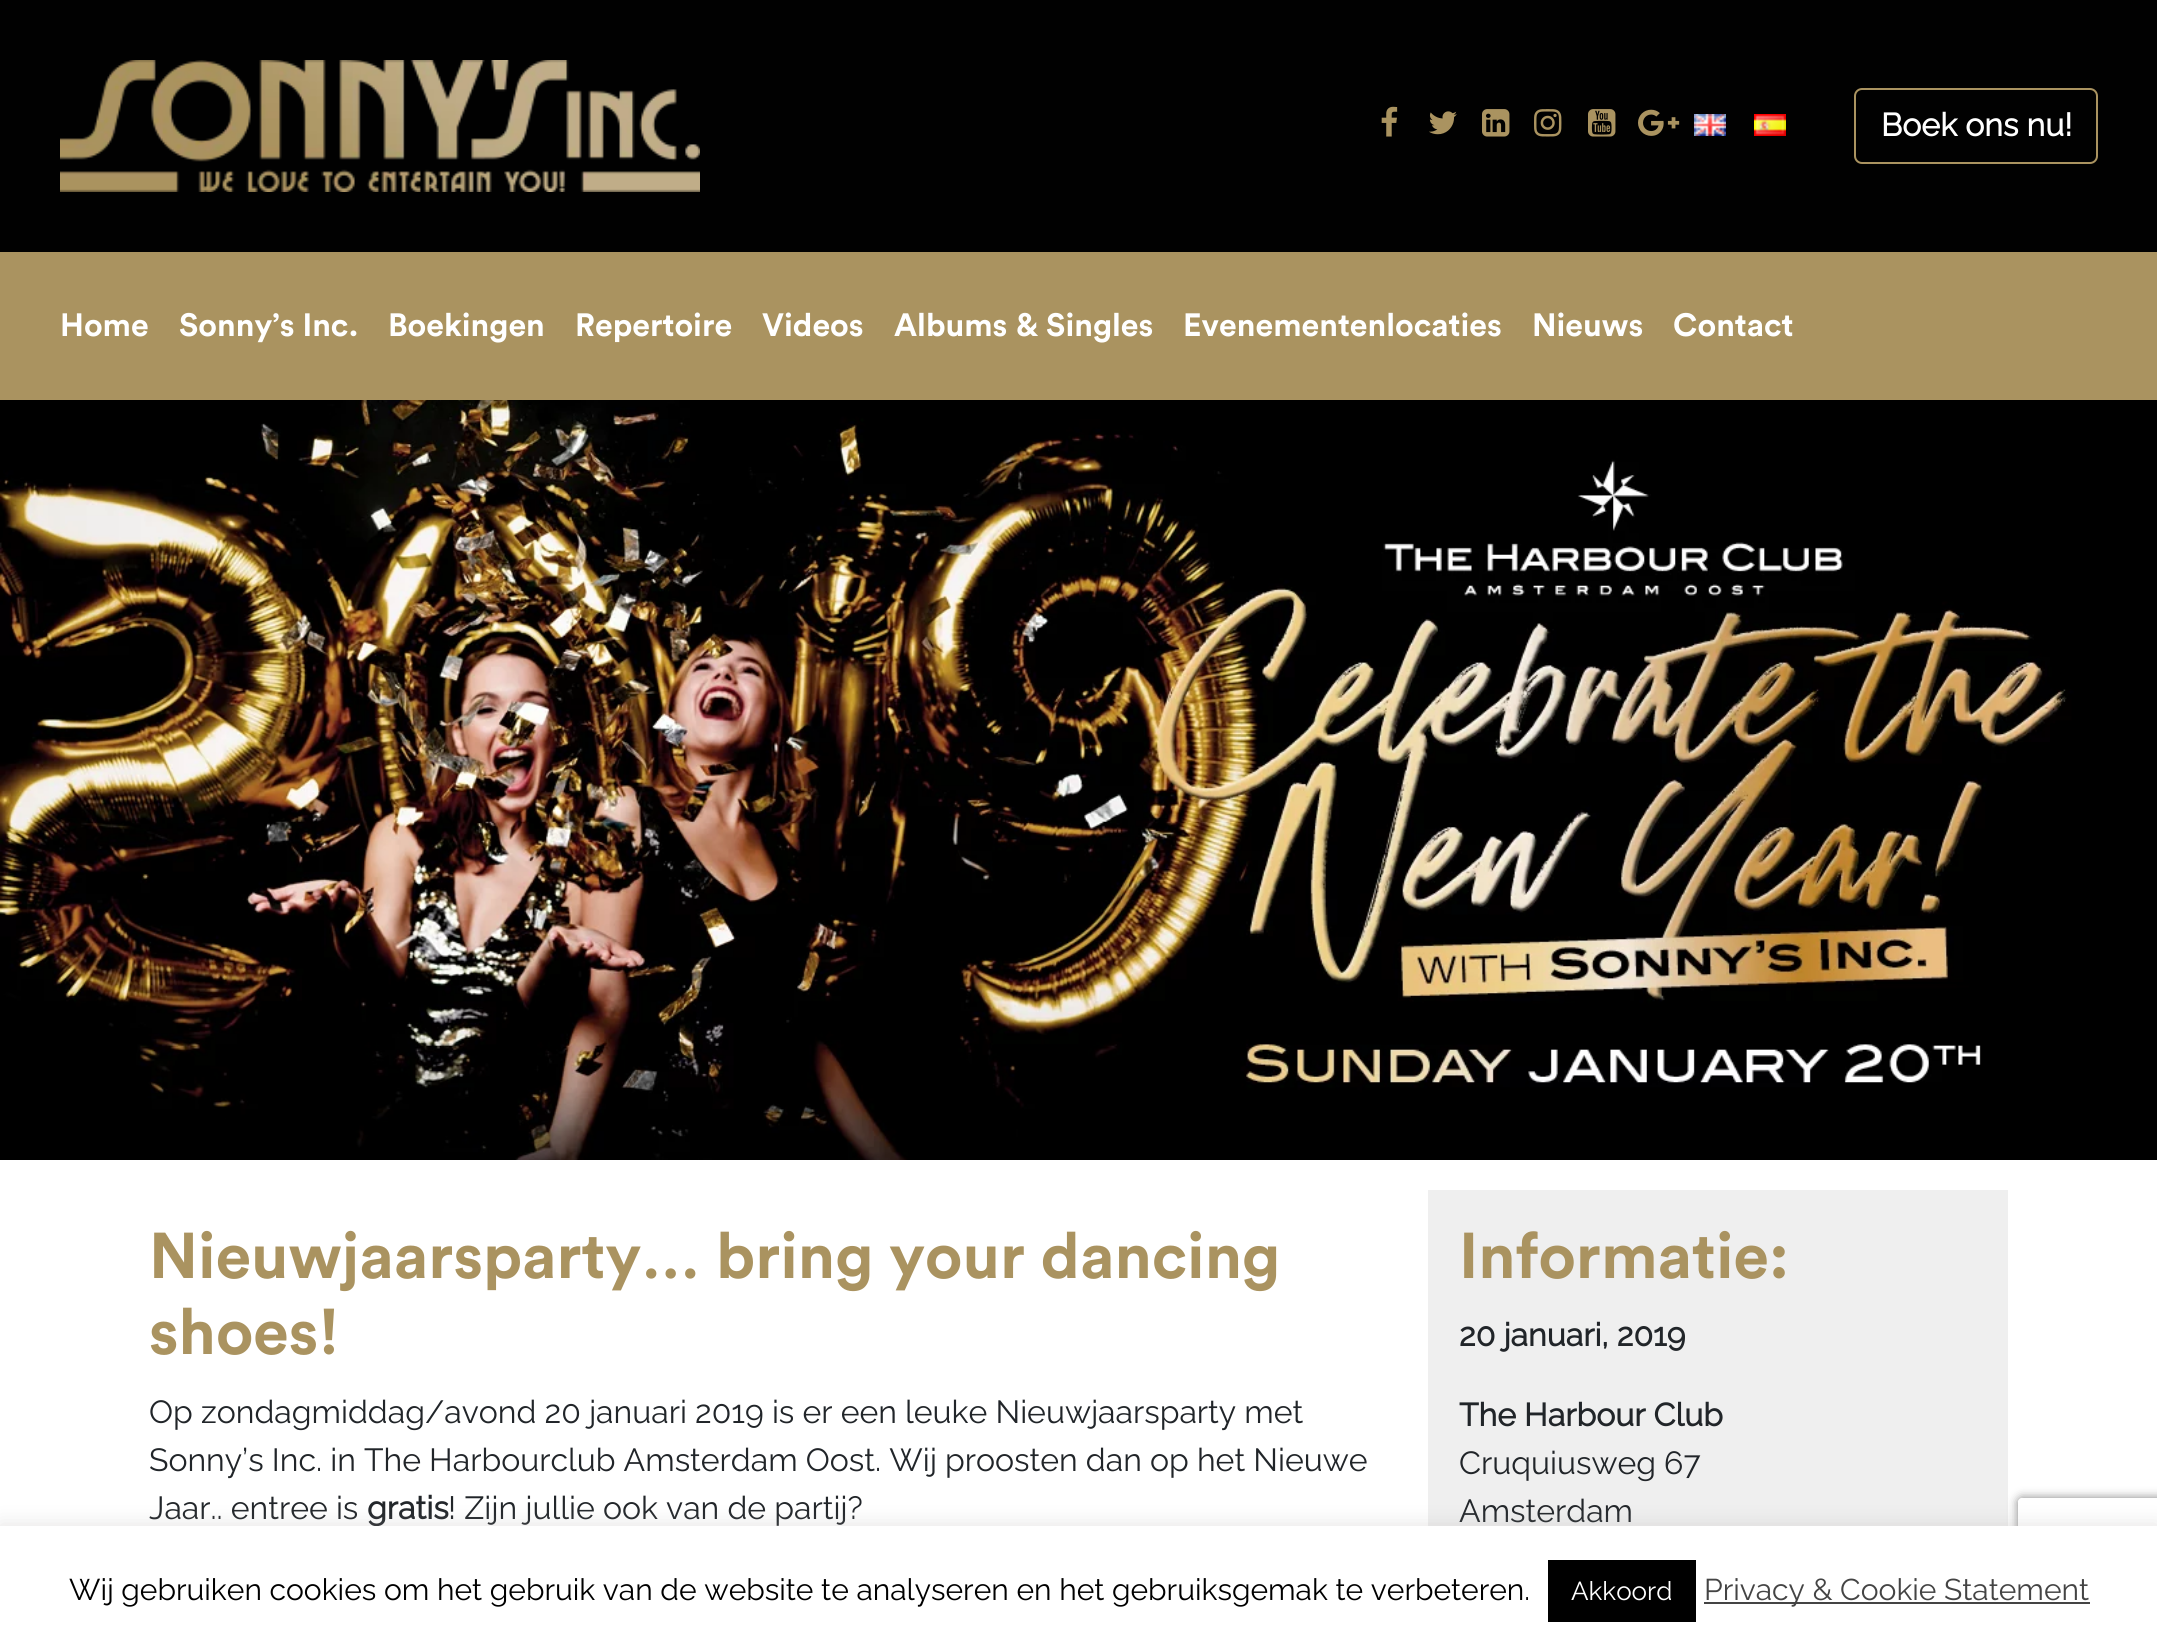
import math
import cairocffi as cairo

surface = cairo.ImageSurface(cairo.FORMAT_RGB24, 2157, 1645)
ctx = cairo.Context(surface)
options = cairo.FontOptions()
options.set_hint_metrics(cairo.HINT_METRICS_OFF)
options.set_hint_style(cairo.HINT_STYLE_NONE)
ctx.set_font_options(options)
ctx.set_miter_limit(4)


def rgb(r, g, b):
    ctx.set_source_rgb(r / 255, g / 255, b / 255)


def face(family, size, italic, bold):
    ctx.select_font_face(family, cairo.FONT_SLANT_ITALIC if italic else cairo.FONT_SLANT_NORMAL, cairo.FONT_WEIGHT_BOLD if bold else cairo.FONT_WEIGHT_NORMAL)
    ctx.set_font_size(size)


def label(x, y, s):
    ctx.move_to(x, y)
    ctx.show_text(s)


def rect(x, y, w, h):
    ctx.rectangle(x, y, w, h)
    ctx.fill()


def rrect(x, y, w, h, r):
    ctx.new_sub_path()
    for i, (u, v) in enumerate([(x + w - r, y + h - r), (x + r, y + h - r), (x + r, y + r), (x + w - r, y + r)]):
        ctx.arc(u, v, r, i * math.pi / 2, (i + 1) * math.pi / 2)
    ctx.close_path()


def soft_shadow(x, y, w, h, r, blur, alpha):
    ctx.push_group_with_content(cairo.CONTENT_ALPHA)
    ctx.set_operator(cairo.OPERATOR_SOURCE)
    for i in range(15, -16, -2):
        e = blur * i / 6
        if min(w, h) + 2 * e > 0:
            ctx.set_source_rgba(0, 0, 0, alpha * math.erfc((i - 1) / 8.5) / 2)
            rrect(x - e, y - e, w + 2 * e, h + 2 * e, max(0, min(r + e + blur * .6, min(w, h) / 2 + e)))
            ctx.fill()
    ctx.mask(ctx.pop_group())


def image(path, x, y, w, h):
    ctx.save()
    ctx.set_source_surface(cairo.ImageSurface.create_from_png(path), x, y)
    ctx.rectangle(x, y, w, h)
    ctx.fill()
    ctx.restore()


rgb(255, 255, 255)
ctx.paint()
rgb(1, 1, 1)
rect(0, 0, 2157, 252)
image('image0.png', 60, 60, 640, 132)
image('image1.png', 1381, 106, 17, 31)
image('image2.png', 1429, 111, 28, 24)
image('image3.png', 1482, 109, 28, 28)
image('image4.png', 1534, 109, 28, 28)
image('image5.png', 1588, 109, 28, 28)
image('image6.png', 1638, 109, 42, 27)
image('image7.png', 1694, 114, 32, 22)
image('image8.png', 1754, 114, 32, 22)
rrect(1855, 89, 242, 74, 7)
rgb(170, 147, 96)
ctx.stroke()
face('Raleway', 32, 0, 1)
rgb(255, 255, 255)
label(1881, 136, 'Boek ons nu!')
rgb(170, 147, 96)
rect(0, 252, 2157, 148)
face('Circular', 32, 0, 1)
rgb(255, 255, 255)
label(60, 336, 'Home')
label(179, 336, 'Sonny’s Inc.')
label(388, 336, 'Boekingen')
label(575, 336, 'Repertoire')
label(762, 336, 'Videos')
label(894, 336, 'Albums & Singles')
label(1183, 336, 'Evenementenlocaties')
label(1532, 336, 'Nieuws')
label(1673, 336, 'Contact')
image('image9.png', 0, 400, 2157, 760)
face('Circular', 64, 0, 1)
rgb(170, 147, 96)
label(149, 1278, 'Nieuwjaarsparty… bring your dancing')
label(149, 1354, 'shoes!')
face('Raleway Thin', 32, 0, 0)
rgb(33, 37, 41)
label(149, 1423, 'Op zondagmiddag/avond 20 januari 2019 is er een leuke Nieuwjaarsparty met')
label(149, 1471, 'Sonny’s Inc. in The Harbourclub Amsterdam Oost. Wij proosten dan op het Nieuwe')
label(149, 1519, 'Jaar.. entree is')
face('Raleway', 32, 0, 1)
label(367, 1519, 'gratis')
face('Raleway Thin', 32, 0, 0)
label(448, 1519, '! Zijn jullie ook van de partij?')
rgb(239, 239, 239)
rect(1428, 1190, 580, 336)
face('Circular', 64, 0, 1)
rgb(170, 147, 96)
label(1459, 1278, 'Informatie:')
face('Raleway', 32, 0, 1)
rgb(33, 37, 41)
label(1459, 1346, '20 januari, 2019')
label(1459, 1426, 'The Harbour Club')
face('Raleway Thin', 32, 0, 0)
label(1459, 1474, 'Cruquiusweg 67')
label(1459, 1522, 'Amsterdam')
ctx.save()
ctx.set_fill_rule(cairo.FILL_RULE_EVEN_ODD)
ctx.new_path()
ctx.move_to(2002, 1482)
ctx.line_to(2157, 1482)
ctx.line_to(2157, 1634)
ctx.line_to(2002, 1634)
ctx.close_path()
ctx.move_to(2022, 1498)
ctx.line_to(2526, 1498)
ctx.curve_to(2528, 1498, 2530, 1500, 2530, 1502)
ctx.line_to(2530, 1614)
ctx.curve_to(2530, 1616, 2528, 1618, 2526, 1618)
ctx.line_to(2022, 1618)
ctx.curve_to(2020, 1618, 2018, 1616, 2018, 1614)
ctx.line_to(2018, 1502)
ctx.curve_to(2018, 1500, 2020, 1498, 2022, 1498)
ctx.close_path()
ctx.clip()
rgb(128, 128, 128)
soft_shadow(2018, 1498, 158, 120, 4, 5, 1)
ctx.restore()
rgb(172, 171, 171)
soft_shadow(0, 1524, 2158, 120, 0, 10, 0.3)
rgb(255, 255, 255)
rect(0, 1526, 2157, 119)
face('Raleway Thin', 30, 0, 0)
rgb(0, 0, 0)
label(69, 1600, 'Wij gebruiken cookies om het gebruik van de website te analyseren en het gebruiksgemak te verbeteren.')
rect(1548, 1560, 148, 62)
face('Raleway Thin', 26, 0, 0)
rgb(255, 255, 255)
label(1571, 1600, 'Akkoord')
rgb(68, 68, 68)
rect(1704, 1602, 386, 2)
face('Raleway Thin', 30, 0, 0)
label(1704, 1600, 'Privacy & Cookie Statement')
surface.write_to_png('render.png')
